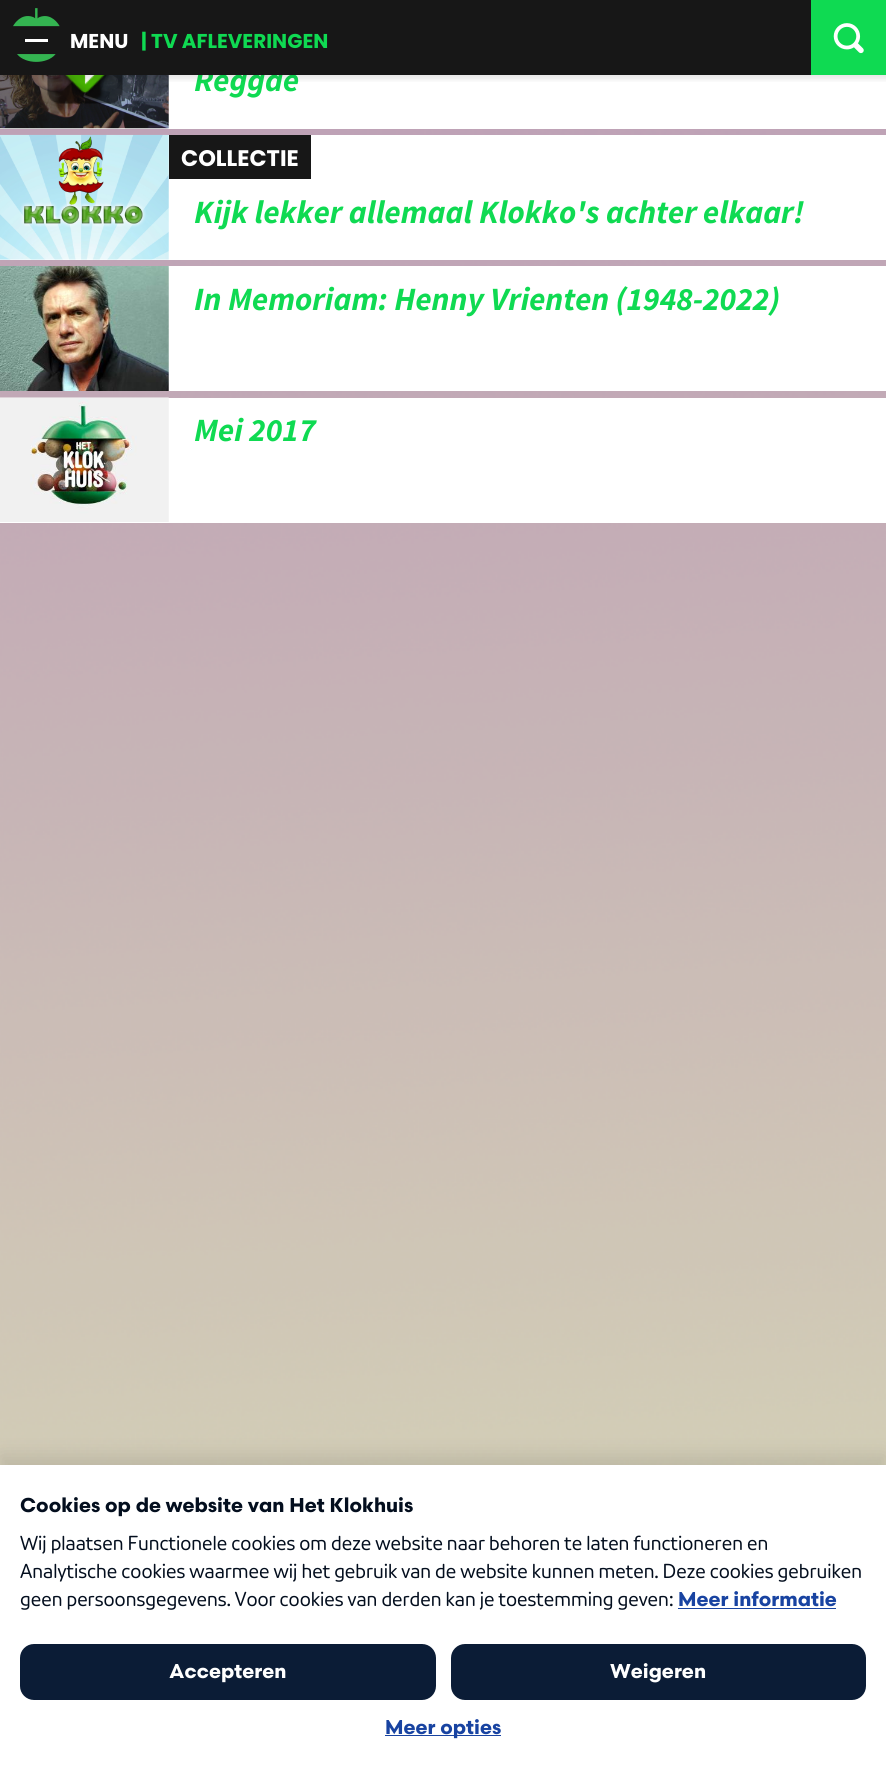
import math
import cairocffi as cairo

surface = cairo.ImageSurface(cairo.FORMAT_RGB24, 886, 1772)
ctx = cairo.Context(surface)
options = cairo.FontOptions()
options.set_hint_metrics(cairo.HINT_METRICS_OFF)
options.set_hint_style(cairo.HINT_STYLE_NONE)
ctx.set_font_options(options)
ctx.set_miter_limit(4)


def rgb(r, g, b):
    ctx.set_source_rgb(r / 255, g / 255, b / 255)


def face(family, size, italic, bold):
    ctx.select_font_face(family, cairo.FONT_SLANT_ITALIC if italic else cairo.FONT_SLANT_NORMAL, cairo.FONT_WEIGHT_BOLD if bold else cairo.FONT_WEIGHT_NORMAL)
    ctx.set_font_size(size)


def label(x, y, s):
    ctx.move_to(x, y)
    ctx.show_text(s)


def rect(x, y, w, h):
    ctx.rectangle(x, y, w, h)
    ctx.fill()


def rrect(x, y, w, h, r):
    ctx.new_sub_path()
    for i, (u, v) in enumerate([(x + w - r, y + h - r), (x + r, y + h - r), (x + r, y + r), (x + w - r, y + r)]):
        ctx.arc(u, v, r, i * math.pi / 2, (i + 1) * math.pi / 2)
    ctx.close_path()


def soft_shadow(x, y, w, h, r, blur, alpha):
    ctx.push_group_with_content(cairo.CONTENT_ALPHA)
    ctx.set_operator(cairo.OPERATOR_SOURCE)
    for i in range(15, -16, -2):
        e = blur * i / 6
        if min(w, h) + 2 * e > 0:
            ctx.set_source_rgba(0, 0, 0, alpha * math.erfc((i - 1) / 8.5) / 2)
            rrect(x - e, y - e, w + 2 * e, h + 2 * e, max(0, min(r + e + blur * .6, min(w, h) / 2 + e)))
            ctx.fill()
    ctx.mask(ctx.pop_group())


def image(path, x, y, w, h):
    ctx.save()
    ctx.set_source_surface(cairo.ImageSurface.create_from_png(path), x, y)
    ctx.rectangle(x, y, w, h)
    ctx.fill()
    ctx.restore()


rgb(255, 255, 255)
ctx.paint()
image('image0.png', 0, 129, 886, 1336)
face('Source Sans Pro', 32.5, 1, 1)
rgb(15, 218, 82)
label(194, 91, 'Reggae')
rgb(23, 23, 23)
rect(0, 0, 811, 75)
image('image3.png', 0, 75, 169, 54)
image('image4.png', 47, 75, 76, 29)
ctx.save()
ctx.rectangle(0, 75, 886, 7)
ctx.clip()
rgb(0, 0, 0)
soft_shadow(-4, -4, 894, 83, 0, 3, 0.1)
ctx.restore()
rgb(15, 218, 82)
rect(811, 0, 75, 75)
image('image1.png', 833, 23, 31, 31)
image('image2.png', 13, 8, 47, 54)
face('Poppins', 20, 0, 1)
rgb(255, 255, 255)
label(70, 48, 'MENU')
rect(25, 39, 23, 3)
rgb(15, 218, 82)
label(141, 48, '| TV AFLEVERINGEN')
rgb(255, 255, 255)
rect(0, 135, 886, 125)
image('image5.png', 0, 134, 169, 126)
rgb(23, 23, 23)
rect(169, 135, 142, 44)
face('Poppins', 22.5, 0, 1)
rgb(255, 255, 255)
label(181, 166, 'COLLECTIE')
face('Source Sans Pro', 32.5, 1, 1)
rgb(15, 218, 82)
label(194, 223, 'Kijk lekker allemaal Klokko\'s achter elkaar!')
rgb(255, 255, 255)
rect(168, 266, 718, 125)
image('image6.png', 0, 266, 169, 125)
rgb(15, 218, 82)
label(194, 310, 'In Memoriam: Henny Vrienten (1948-2022)')
rgb(255, 255, 255)
rect(0, 398, 886, 125)
image('image7.png', 0, 397, 169, 125)
rgb(15, 218, 82)
label(194, 441, 'Mei 2017')
rgb(0, 0, 0)
soft_shadow(0, 1455, 886, 308, 0, 9.5, 0.1)
rgb(255, 255, 255)
rect(0, 1465, 886, 307)
face('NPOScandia', 20, 0, 1)
rgb(3, 14, 30)
label(20, 1512, 'Cookies op de website van Het Klokhuis')
face('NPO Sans', 20, 0, 0)
label(20, 1550, 'Wij plaatsen Functionele cookies om deze website naar behoren te laten functioneren en')
label(20, 1578, 'Analytische cookies waarmee wij het gebruik van de website kunnen meten. Deze cookies gebruiken')
label(20, 1606, 'geen persoonsgegevens. Voor cookies van derden kan je toestemming geven:')
face('NPOScandia', 20, 0, 1)
rgb(24, 67, 161)
label(678, 1606, 'Meer informatie')
rect(678, 1608, 158, 1)
rgb(11, 28, 54)
rrect(20, 1644, 416, 56, 14)
ctx.fill()
rgb(255, 255, 255)
label(169, 1678, 'Accepteren')
rgb(11, 28, 54)
rrect(451, 1644, 415, 56, 14)
ctx.fill()
rgb(255, 255, 255)
label(610, 1678, 'Weigeren')
rgb(24, 67, 161)
rect(385, 1735, 116, 1)
label(385, 1734, 'Meer opties')
surface.write_to_png('render.png')
